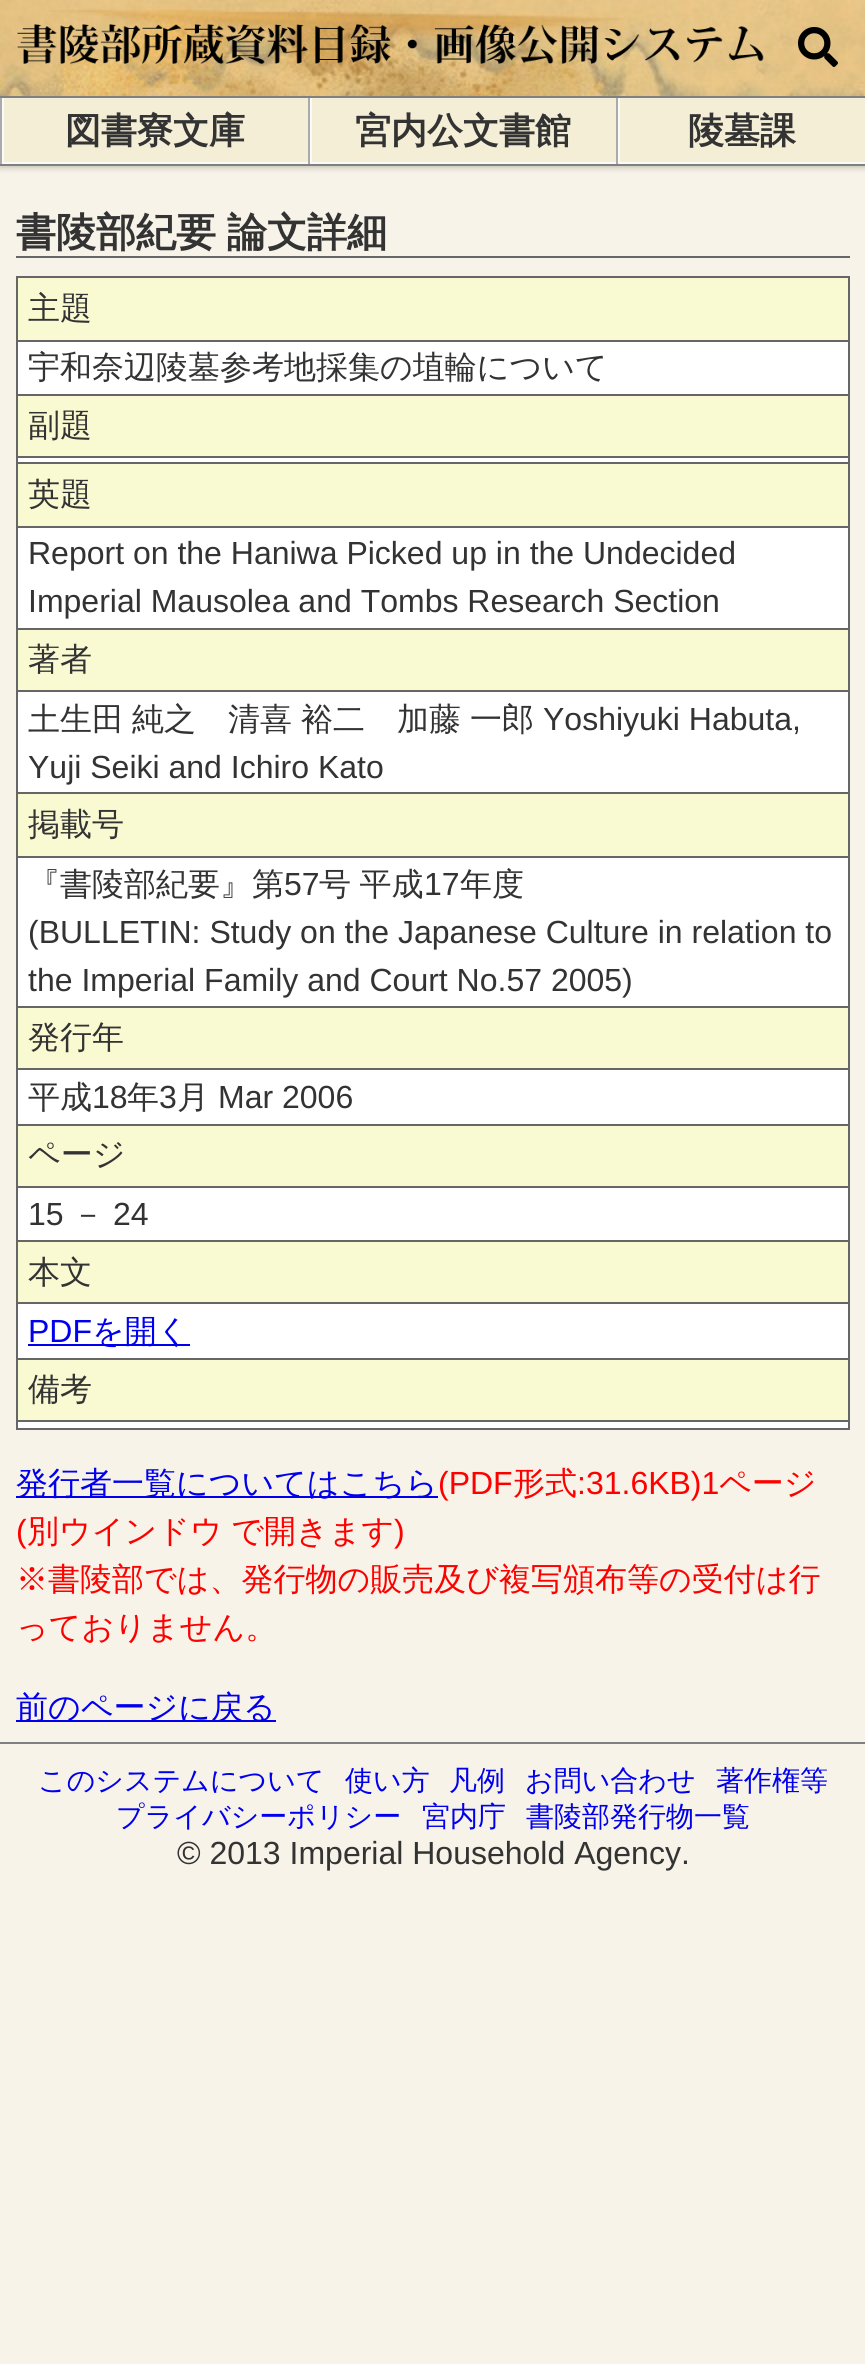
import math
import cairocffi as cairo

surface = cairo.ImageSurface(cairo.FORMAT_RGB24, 865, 2364)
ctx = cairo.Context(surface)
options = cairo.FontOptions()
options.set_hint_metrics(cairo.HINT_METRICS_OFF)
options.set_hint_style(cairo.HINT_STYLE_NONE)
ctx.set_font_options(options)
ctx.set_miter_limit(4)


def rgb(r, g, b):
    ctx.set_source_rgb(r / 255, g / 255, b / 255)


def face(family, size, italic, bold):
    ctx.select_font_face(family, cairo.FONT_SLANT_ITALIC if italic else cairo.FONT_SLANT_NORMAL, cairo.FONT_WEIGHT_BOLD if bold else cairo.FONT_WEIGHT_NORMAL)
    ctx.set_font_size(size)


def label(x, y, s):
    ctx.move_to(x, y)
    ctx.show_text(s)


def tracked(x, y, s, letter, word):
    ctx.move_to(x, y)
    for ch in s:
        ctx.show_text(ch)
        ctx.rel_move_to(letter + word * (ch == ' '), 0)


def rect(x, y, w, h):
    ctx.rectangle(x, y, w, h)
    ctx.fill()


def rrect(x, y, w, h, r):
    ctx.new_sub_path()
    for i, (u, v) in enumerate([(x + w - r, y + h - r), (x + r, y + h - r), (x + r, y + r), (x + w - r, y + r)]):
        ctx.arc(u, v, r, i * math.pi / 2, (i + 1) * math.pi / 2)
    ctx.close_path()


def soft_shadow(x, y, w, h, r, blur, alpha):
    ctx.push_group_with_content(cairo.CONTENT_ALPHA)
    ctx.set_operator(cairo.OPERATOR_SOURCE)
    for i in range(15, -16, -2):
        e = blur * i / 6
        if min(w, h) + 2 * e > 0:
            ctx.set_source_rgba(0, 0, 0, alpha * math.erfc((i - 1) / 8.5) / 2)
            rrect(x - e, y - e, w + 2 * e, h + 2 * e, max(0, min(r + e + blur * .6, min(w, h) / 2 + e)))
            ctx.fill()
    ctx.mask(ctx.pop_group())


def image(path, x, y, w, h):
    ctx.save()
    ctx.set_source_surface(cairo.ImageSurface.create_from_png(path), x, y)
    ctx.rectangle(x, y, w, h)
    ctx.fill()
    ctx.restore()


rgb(247, 243, 232)
ctx.paint()
rgb(0, 0, 0)
soft_shadow(0, 2, 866, 166, 0, 3, 0.2)
image('image0.png', 0, 0, 865, 96)
rgb(128, 128, 128)
rect(0, 164, 865, 2)
image('image1.png', 17, 24, 747, 40)
image('image2.png', 798, 27, 40, 40)
rgb(243, 238, 213)
rect(4, 98, 861, 64)
rgb(128, 128, 128)
rect(0, 96, 865, 2)
ctx.save()
ctx.rectangle(2, 98, 306, 66)
ctx.clip()
rgb(250, 250, 250)
ctx.set_fill_rule(cairo.FILL_RULE_EVEN_ODD)
ctx.new_path()
ctx.move_to(-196, -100)
ctx.line_to(506, -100)
ctx.line_to(506, 362)
ctx.line_to(-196, 362)
ctx.close_path()
ctx.move_to(4, 96)
ctx.line_to(310, 96)
ctx.line_to(310, 162)
ctx.line_to(4, 162)
ctx.close_path()
ctx.fill()
ctx.restore()
rgb(170, 170, 170)
rect(308, 98, 2, 66)
rect(0, 98, 2, 66)
face('WenQuanYi Zen Hei', 36, 0, 1)
rgb(51, 51, 51)
label(65, 143, '図書寮文庫')
ctx.save()
ctx.rectangle(310, 98, 306, 66)
ctx.clip()
rgb(250, 250, 250)
ctx.set_fill_rule(cairo.FILL_RULE_EVEN_ODD)
ctx.new_path()
ctx.move_to(112, -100)
ctx.line_to(814, -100)
ctx.line_to(814, 362)
ctx.line_to(112, 362)
ctx.close_path()
ctx.move_to(312, 96)
ctx.line_to(618, 96)
ctx.line_to(618, 162)
ctx.line_to(312, 162)
ctx.close_path()
ctx.fill()
ctx.restore()
rgb(170, 170, 170)
rect(616, 98, 2, 66)
rgb(51, 51, 51)
label(355, 143, '宮内公文書館')
ctx.save()
ctx.rectangle(618, 98, 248, 66)
ctx.clip()
rgb(250, 250, 250)
ctx.set_fill_rule(cairo.FILL_RULE_EVEN_ODD)
ctx.new_path()
ctx.move_to(420, -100)
ctx.line_to(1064, -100)
ctx.line_to(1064, 362)
ctx.line_to(420, 362)
ctx.close_path()
ctx.move_to(620, 96)
ctx.line_to(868, 96)
ctx.line_to(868, 162)
ctx.line_to(620, 162)
ctx.close_path()
ctx.fill()
ctx.restore()
label(688, 143, '陵墓課')
rgb(102, 102, 102)
rect(16, 256, 834, 2)
face('WenQuanYi Zen Hei', 40, 0, 1)
rgb(51, 51, 51)
tracked(16, 246, '書陵部紀要 論文詳細', 0, -1)
rgb(255, 255, 255)
rect(18, 342, 830, 1086)
rgb(250, 250, 210)
ctx.rectangle(17, 277, 832, 64)
ctx.fill_preserve()
rgb(102, 102, 102)
ctx.stroke()
face('WenQuanYi Zen Hei Medium', 32, 0, 0)
rgb(51, 51, 51)
label(28, 319, '主題')
ctx.rectangle(17, 341, 832, 56)
rgb(102, 102, 102)
ctx.stroke()
rgb(51, 51, 51)
label(28, 378, '宇和奈辺陵墓参考地採集の埴輪について')
rgb(250, 250, 210)
ctx.rectangle(17, 395, 832, 62)
ctx.fill_preserve()
rgb(102, 102, 102)
ctx.stroke()
rgb(51, 51, 51)
label(28, 436, '副題')
ctx.rectangle(17, 457, 832, 8)
rgb(102, 102, 102)
ctx.stroke()
rgb(250, 250, 210)
ctx.rectangle(17, 463, 832, 64)
ctx.fill_preserve()
rgb(102, 102, 102)
ctx.stroke()
rgb(51, 51, 51)
label(28, 505, '英題')
ctx.rectangle(17, 527, 832, 104)
rgb(102, 102, 102)
ctx.stroke()
face('Liberation Sans', 32, 0, 0)
rgb(51, 51, 51)
label(28, 564, 'Report on the Haniwa Picked up in the Undecided')
label(28, 612, 'Imperial Mausolea and Tombs Research Section')
rgb(250, 250, 210)
ctx.rectangle(17, 629, 832, 62)
ctx.fill_preserve()
rgb(102, 102, 102)
ctx.stroke()
face('WenQuanYi Zen Hei Medium', 32, 0, 0)
rgb(51, 51, 51)
label(28, 670, '著者')
ctx.rectangle(17, 691, 832, 104)
rgb(102, 102, 102)
ctx.stroke()
rgb(51, 51, 51)
label(28, 730, '土生田')
label(132, 730, '純之　清喜')
label(301, 730, '裕二　加藤')
label(470, 730, '一郎')
face('Liberation Sans', 32, 0, 0)
label(543, 730, 'Yoshiyuki Habuta,')
label(28, 778, 'Yuji Seiki and Ichiro Kato')
rgb(250, 250, 210)
ctx.rectangle(17, 793, 832, 64)
ctx.fill_preserve()
rgb(102, 102, 102)
ctx.stroke()
face('WenQuanYi Zen Hei Medium', 32, 0, 0)
rgb(51, 51, 51)
label(28, 835, '掲載号')
ctx.rectangle(17, 857, 832, 152)
rgb(102, 102, 102)
ctx.stroke()
rgb(51, 51, 51)
label(28, 895, '『書陵部紀要』第')
face('Liberation Sans', 32, 0, 0)
label(284, 895, '57')
face('WenQuanYi Zen Hei Medium', 32, 0, 0)
tracked(319, 895, '号 平成', 0, -1)
face('Liberation Sans', 32, 0, 0)
label(424, 895, '17')
face('WenQuanYi Zen Hei Medium', 32, 0, 0)
label(460, 895, '年度')
face('Liberation Sans', 32, 0, 0)
label(28, 943, '(BULLETIN: Study on the Japanese Culture in relation to')
label(28, 991, 'the Imperial Family and Court No.57 2005)')
rgb(250, 250, 210)
ctx.rectangle(17, 1007, 832, 62)
ctx.fill_preserve()
rgb(102, 102, 102)
ctx.stroke()
face('WenQuanYi Zen Hei Medium', 32, 0, 0)
rgb(51, 51, 51)
label(28, 1048, '発行年')
ctx.rectangle(17, 1069, 832, 58)
rgb(102, 102, 102)
ctx.stroke()
rgb(51, 51, 51)
label(28, 1108, '平成')
face('Liberation Sans', 32, 0, 0)
label(92, 1108, '18')
face('WenQuanYi Zen Hei Medium', 32, 0, 0)
label(127, 1108, '年')
face('Liberation Sans', 32, 0, 0)
label(159, 1108, '3')
face('WenQuanYi Zen Hei Medium', 32, 0, 0)
label(177, 1108, '月')
face('Liberation Sans', 32, 0, 0)
label(218, 1108, 'Mar 2006')
rgb(250, 250, 210)
ctx.rectangle(17, 1125, 832, 62)
ctx.fill_preserve()
rgb(102, 102, 102)
ctx.stroke()
face('WenQuanYi Zen Hei Medium', 32, 0, 0)
rgb(51, 51, 51)
label(28, 1165, 'ページ')
ctx.rectangle(17, 1187, 832, 56)
rgb(102, 102, 102)
ctx.stroke()
face('Liberation Sans', 32, 0, 0)
rgb(51, 51, 51)
label(28, 1225, '15')
face('WenQuanYi Zen Hei Medium', 32, 0, 0)
label(72, 1225, '－')
face('Liberation Sans', 32, 0, 0)
label(113, 1225, '24')
rgb(250, 250, 210)
ctx.rectangle(17, 1241, 832, 62)
ctx.fill_preserve()
rgb(102, 102, 102)
ctx.stroke()
face('WenQuanYi Zen Hei Medium', 32, 0, 0)
rgb(51, 51, 51)
label(28, 1283, '本文')
ctx.rectangle(17, 1303, 832, 58)
rgb(102, 102, 102)
ctx.stroke()
face('Liberation Sans', 32, 0, 0)
rgb(0, 0, 238)
label(28, 1342, 'PDF')
rect(28, 1344, 162, 2)
face('WenQuanYi Zen Hei Medium', 32, 0, 0)
label(92, 1342, 'を開く')
rgb(250, 250, 210)
ctx.rectangle(17, 1359, 832, 62)
ctx.fill_preserve()
rgb(102, 102, 102)
ctx.stroke()
rgb(51, 51, 51)
label(28, 1400, '備考')
ctx.rectangle(17, 1421, 832, 8)
rgb(102, 102, 102)
ctx.stroke()
rgb(0, 0, 238)
rect(16, 1496, 422, 2)
label(16, 1494, '発行者一覧についてはこちら')
face('Liberation Sans', 32, 0, 0)
rgb(255, 0, 0)
label(438, 1494, '(PDF')
face('WenQuanYi Zen Hei Medium', 32, 0, 0)
label(513, 1494, '形式')
face('Liberation Sans', 32, 0, 0)
label(577, 1494, ':31.6KB)1')
face('WenQuanYi Zen Hei Medium', 32, 0, 0)
label(719, 1494, 'ページ')
face('Liberation Sans', 32, 0, 0)
label(16, 1542, '(')
face('WenQuanYi Zen Hei Medium', 32, 0, 0)
tracked(27, 1542, '別ウインドウ で開きます', 0, -1)
face('Liberation Sans', 32, 0, 0)
label(394, 1542, ')')
face('WenQuanYi Zen Hei Medium', 32, 0, 0)
label(16, 1590, '※書陵部では、発行物の販売及び複写頒布等の受付は行')
label(16, 1638, 'っておりません。')
rgb(0, 0, 238)
rect(16, 1720, 260, 2)
label(16, 1718, '前のページに戻る')
rgb(128, 128, 128)
rect(0, 1742, 865, 2)
face('WenQuanYi Zen Hei Medium', 28, 0, 0)
rgb(0, 0, 238)
label(38, 1790, 'このシステムについて')
label(345, 1790, '使い方')
label(449, 1790, '凡例')
label(525, 1790, 'お問い合わせ')
label(716, 1790, '著作権等')
label(116, 1826, 'プライバシーポリシー')
label(422, 1826, '宮内庁')
label(526, 1826, '書陵部発行物一覧')
face('Liberation Sans', 32, 0, 0)
rgb(51, 51, 51)
label(177, 1864, '© 2013 Imperial Household Agency.')
surface.write_to_png('render.png')
